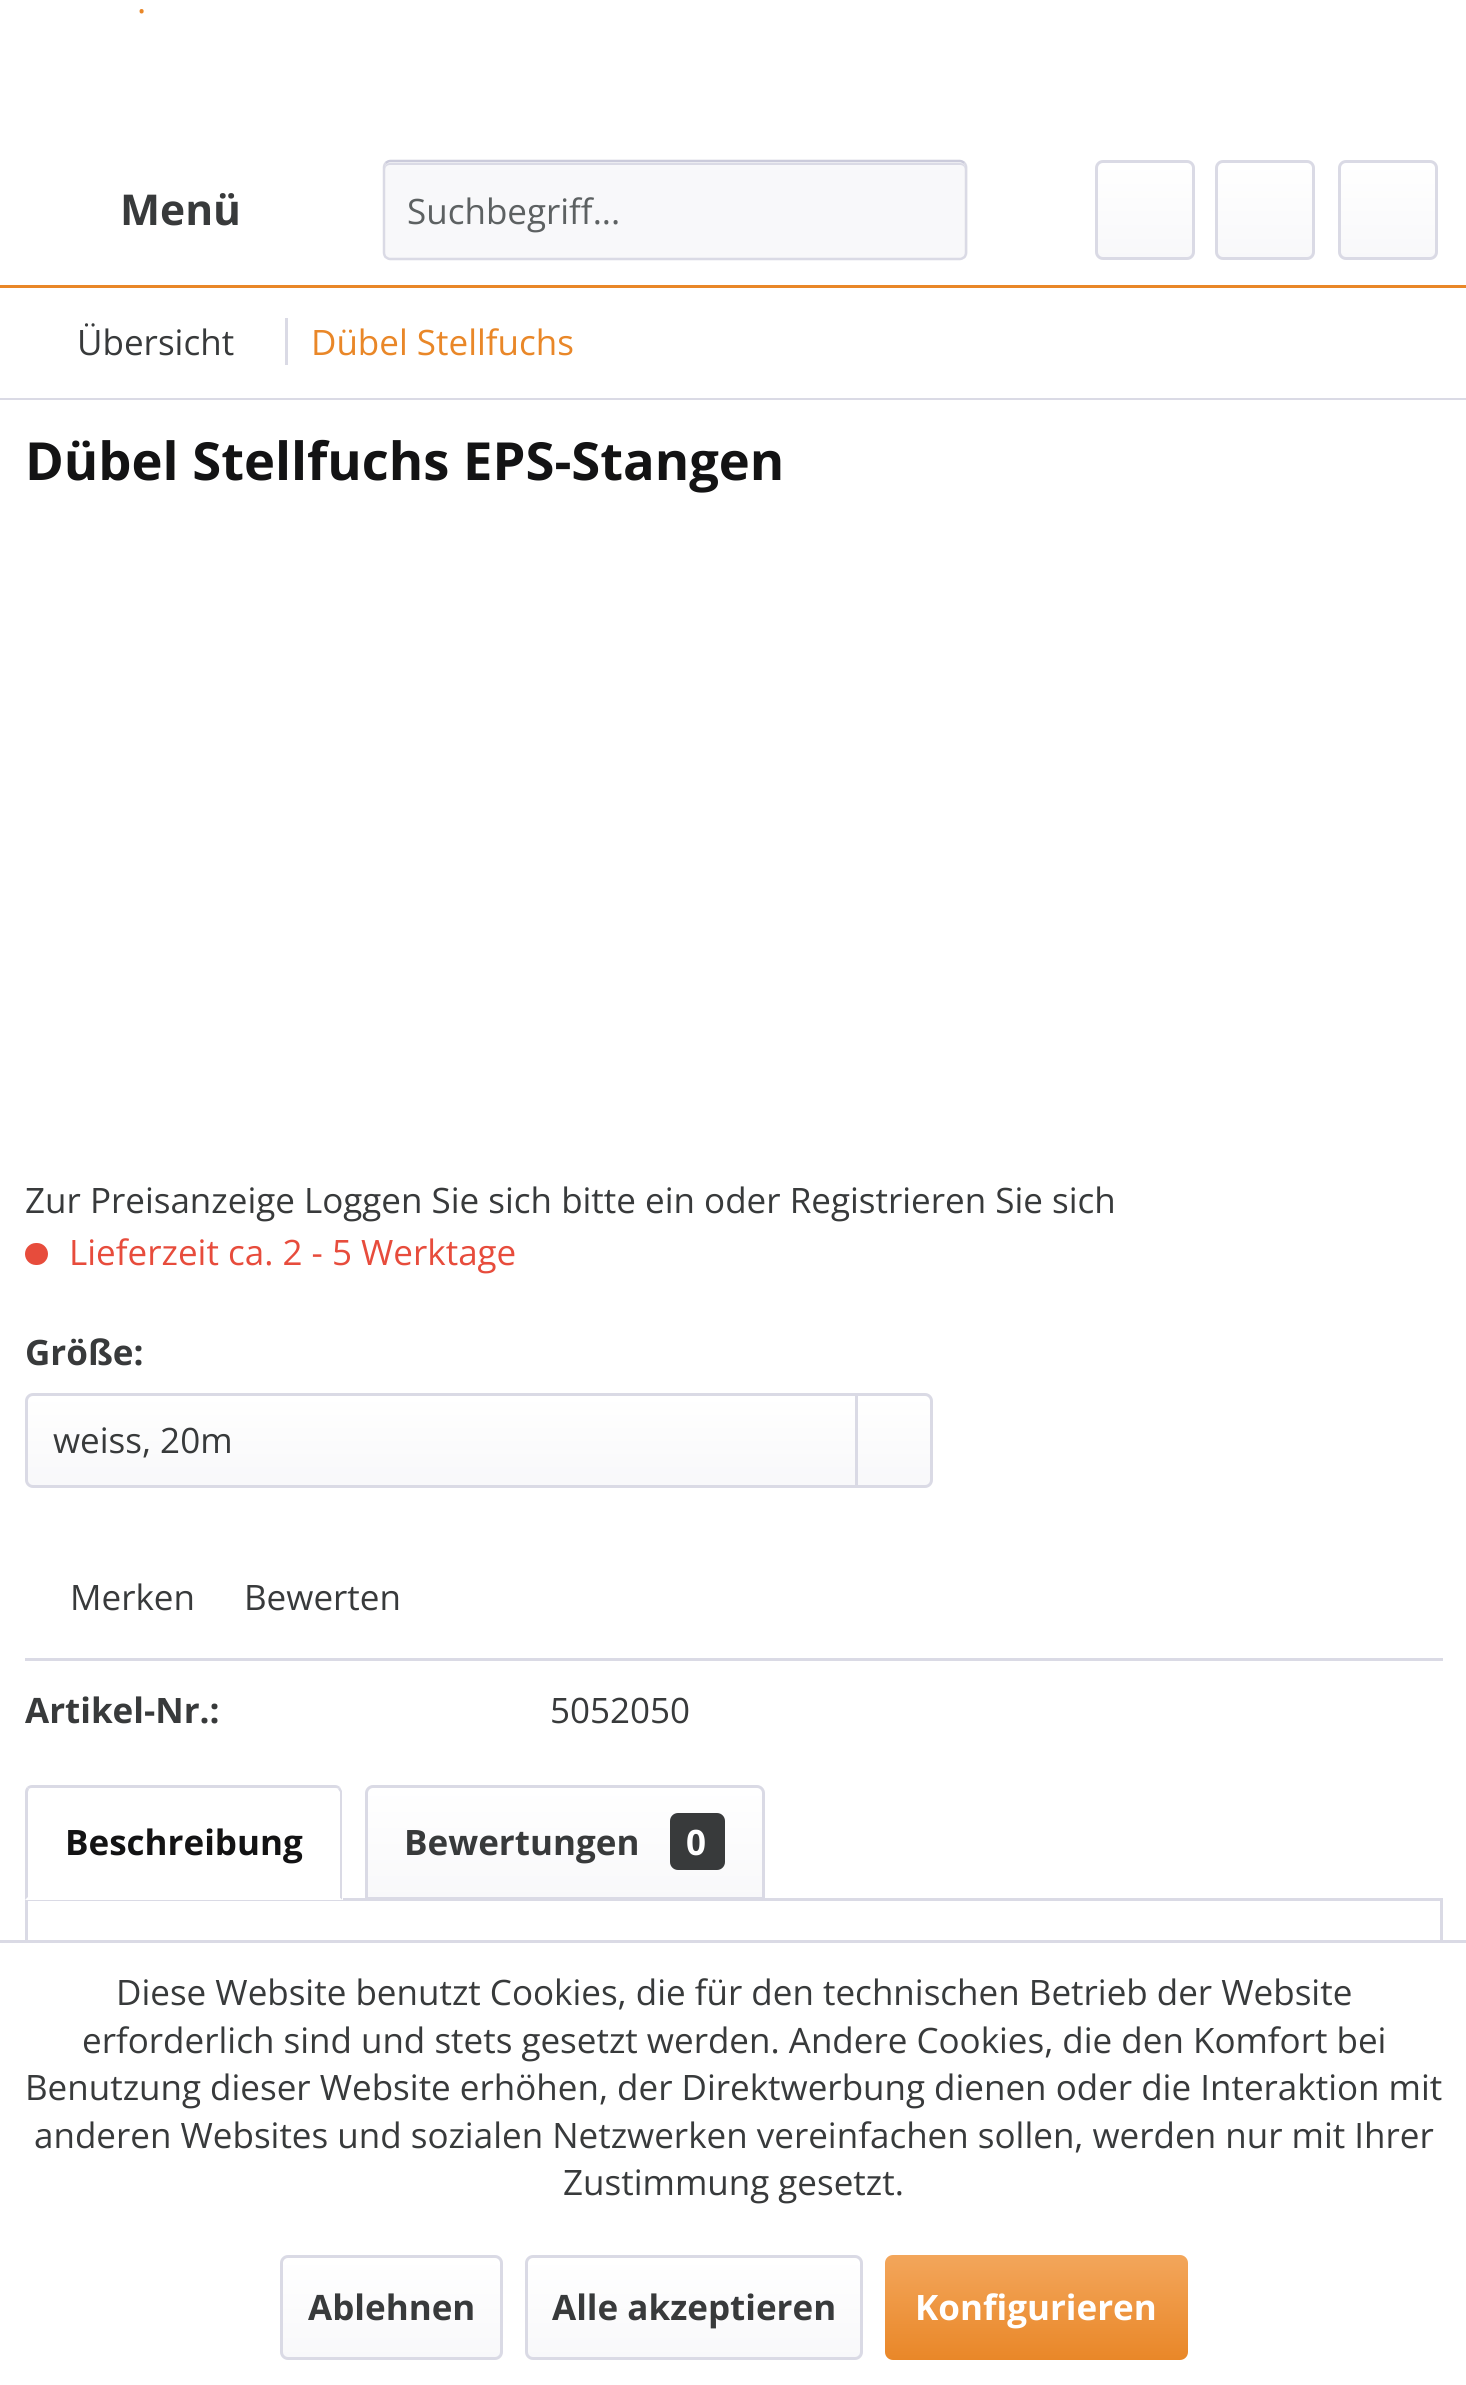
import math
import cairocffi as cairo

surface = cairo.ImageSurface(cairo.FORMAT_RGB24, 1466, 2385)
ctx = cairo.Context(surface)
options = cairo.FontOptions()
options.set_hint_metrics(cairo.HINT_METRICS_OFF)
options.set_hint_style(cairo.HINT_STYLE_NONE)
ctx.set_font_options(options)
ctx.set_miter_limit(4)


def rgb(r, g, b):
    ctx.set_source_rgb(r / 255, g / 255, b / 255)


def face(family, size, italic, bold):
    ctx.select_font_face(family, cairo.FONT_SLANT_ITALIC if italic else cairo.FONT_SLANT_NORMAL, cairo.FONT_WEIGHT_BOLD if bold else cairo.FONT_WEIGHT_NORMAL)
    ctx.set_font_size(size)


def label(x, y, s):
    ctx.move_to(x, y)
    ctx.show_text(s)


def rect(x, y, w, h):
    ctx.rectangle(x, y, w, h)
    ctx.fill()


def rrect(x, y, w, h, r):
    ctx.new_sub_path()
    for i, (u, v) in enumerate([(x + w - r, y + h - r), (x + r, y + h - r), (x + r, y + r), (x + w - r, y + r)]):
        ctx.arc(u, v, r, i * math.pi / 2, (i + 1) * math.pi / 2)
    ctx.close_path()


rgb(255, 255, 255)
ctx.paint()
rgb(233, 135, 40)
rect(0, 285, 1466, 3)
face('Open Sans', 35, 0, 0)
label(137, 13, '.')
face('Open Sans', 42.5, 0, 1)
rgb(56, 58, 59)
label(120, 225, 'Menü')
rgb(248, 248, 250)
rrect(383, 160, 585, 100, 8)
ctx.fill()
rgb(218, 218, 229)
ctx.new_path()
ctx.move_to(390, 165)
ctx.line_to(960, 165)
ctx.curve_to(963, 165, 965, 167, 965, 170)
ctx.line_to(965, 168)
ctx.curve_to(965, 165, 963, 163, 960, 163)
ctx.line_to(390, 163)
ctx.curve_to(387, 163, 385, 165, 385, 168)
ctx.line_to(385, 170)
ctx.curve_to(385, 167, 387, 165, 390, 165)
ctx.close_path()
ctx.fill()
ctx.new_path()
ctx.move_to(385.5, 163)
ctx.curve_to(387, 162, 388.5, 161, 390, 161)
ctx.line_to(960, 161)
ctx.curve_to(961.5, 161, 963, 162, 964.5, 163)
rgb(203, 203, 219)
ctx.set_line_width(2.5)
ctx.stroke()
ctx.new_path()
ctx.move_to(964.5, 163)
ctx.curve_to(965.5, 164.5, 966, 166, 966, 167.5)
ctx.line_to(966, 252.5)
ctx.curve_to(966, 254, 965.5, 255.5, 964.5, 257)
ctx.curve_to(963, 258, 961.5, 259, 960, 259)
ctx.line_to(390, 259)
ctx.curve_to(388.5, 259, 387, 258, 385.5, 257)
ctx.curve_to(384.5, 255.5, 384, 254, 384, 252.5)
ctx.line_to(384, 167.5)
ctx.curve_to(384, 166, 384.5, 164.5, 385.5, 163)
rgb(218, 218, 229)
ctx.stroke()
face('Open Sans', 35, 0, 0)
rgb(93, 97, 98)
label(407, 224, 'Suchbegriff...')
gradient = cairo.LinearGradient(1145, 163, 1145, 258)
gradient.add_color_stop_rgba(0, 1, 1, 1, 1)
gradient.add_color_stop_rgba(1, 0.973, 0.973, 0.98, 1)
ctx.set_source(gradient)
rrect(1098, 163, 95, 95, 5)
ctx.fill()
rrect(1096.5, 161.5, 97, 97, 6.5)
rgb(218, 218, 229)
ctx.set_line_width(3)
ctx.stroke()
gradient = cairo.LinearGradient(1265, 163, 1265, 258)
gradient.add_color_stop_rgba(0, 1, 1, 1, 1)
gradient.add_color_stop_rgba(1, 0.973, 0.973, 0.98, 1)
ctx.set_source(gradient)
rrect(1218, 163, 95, 95, 5)
ctx.fill()
rrect(1216.5, 161.5, 97, 97, 6.5)
rgb(218, 218, 229)
ctx.stroke()
gradient = cairo.LinearGradient(1388, 163, 1388, 258)
gradient.add_color_stop_rgba(0, 1, 1, 1, 1)
gradient.add_color_stop_rgba(1, 0.973, 0.973, 0.98, 1)
ctx.set_source(gradient)
rrect(1340, 163, 95, 95, 5)
ctx.fill()
rrect(1339.5, 161.5, 97, 97, 6.5)
rgb(218, 218, 229)
ctx.stroke()
rect(0, 398, 1466, 2)
rgb(56, 58, 59)
label(77, 355, 'Übersicht')
rgb(218, 218, 229)
rect(285, 318, 3, 47)
rgb(233, 135, 40)
label(311, 355, 'Dübel Stellfuchs')
face('Open Sans', 52.5, 0, 1)
rgb(19, 19, 20)
label(25, 480, 'Dübel Stellfuchs EPS-Stangen')
face('Open Sans', 35, 0, 0)
rgb(56, 58, 59)
label(25, 1213, 'Zur Preisanzeige Loggen Sie sich bitte ein oder Registrieren Sie sich')
rgb(231, 76, 60)
rrect(25, 1243, 23, 22, 11)
ctx.fill()
label(69, 1265, 'Lieferzeit ca. 2 - 5 Werktage')
face('Open Sans', 35, 0, 1)
rgb(56, 58, 59)
label(25, 1365, 'Größe:')
gradient = cairo.LinearGradient(479, 1395, 479, 1485)
gradient.add_color_stop_rgba(0, 1, 1, 1, 1)
gradient.add_color_stop_rgba(1, 0.973, 0.973, 0.98, 1)
ctx.set_source(gradient)
rrect(28, 1395, 902, 90, 5)
ctx.fill()
rrect(26.5, 1394.5, 905, 92, 6.5)
rgb(218, 218, 229)
ctx.stroke()
face('Open Sans', 35, 0, 0)
rgb(56, 58, 59)
label(53, 1453, 'weiss, 20m')
rgb(218, 218, 229)
rect(855, 1395, 3, 90)
rect(25, 1658, 1418, 3)
rgb(56, 58, 59)
label(70, 1610, 'Merken')
label(244, 1610, 'Bewerten')
face('Open Sans', 35, 0, 1)
label(25, 1723, 'Artikel-Nr.:')
face('Open Sans', 35, 0, 0)
label(550, 1723, '5052050')
ctx.rectangle(26.5, 1899.5, 1415, 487)
rgb(218, 218, 229)
ctx.stroke()
rgb(255, 255, 255)
ctx.new_path()
ctx.move_to(33, 1785)
ctx.line_to(335, 1785)
ctx.curve_to(339.5, 1785, 343, 1788.5, 343, 1793)
ctx.line_to(343, 1900)
ctx.line_to(25, 1900)
ctx.line_to(25, 1793)
ctx.curve_to(25, 1788.5, 28.5, 1785, 33, 1785)
ctx.close_path()
ctx.fill()
rgb(218, 218, 229)
ctx.new_path()
ctx.move_to(32, 1785)
ctx.curve_to(30, 1785, 28, 1786, 27, 1787)
ctx.line_to(29, 1789)
ctx.curve_to(30, 1788, 31, 1788, 32, 1788)
ctx.line_to(335, 1788)
ctx.curve_to(336, 1788, 338, 1788, 338, 1789)
ctx.line_to(340, 1787)
ctx.curve_to(339, 1786, 337, 1785, 335, 1785)
ctx.close_path()
ctx.fill()
ctx.new_path()
ctx.move_to(340, 1787)
ctx.line_to(342, 1791)
ctx.line_to(342, 1900)
ctx.line_to(340, 1898)
ctx.line_to(340, 1792)
ctx.line_to(338, 1789)
ctx.close_path()
ctx.fill()
rgb(255, 255, 255)
ctx.new_path()
ctx.move_to(342, 1900)
ctx.line_to(340, 1898)
ctx.line_to(28, 1898)
ctx.line_to(28, 1897)
ctx.line_to(25, 1900)
ctx.close_path()
ctx.fill()
rgb(218, 218, 229)
ctx.new_path()
ctx.move_to(25, 1900)
ctx.line_to(28, 1897)
ctx.line_to(28, 1792)
ctx.line_to(29, 1789)
ctx.line_to(27, 1787)
ctx.curve_to(26, 1788, 25, 1790, 25, 1792)
ctx.close_path()
ctx.fill()
face('Open Sans', 35, 0, 1)
rgb(19, 19, 20)
label(65, 1855, 'Beschreibung')
gradient = cairo.LinearGradient(565, 1788, 565, 1898)
gradient.add_color_stop_rgba(0, 1, 1, 1, 1)
gradient.add_color_stop_rgba(1, 0.973, 0.973, 0.98, 1)
ctx.set_source(gradient)
ctx.new_path()
ctx.move_to(373, 1788)
ctx.line_to(758, 1788)
ctx.curve_to(761, 1788, 763, 1790, 763, 1793)
ctx.line_to(763, 1898)
ctx.line_to(368, 1898)
ctx.line_to(368, 1793)
ctx.curve_to(368, 1790, 370, 1788, 373, 1788)
ctx.close_path()
ctx.fill()
ctx.new_path()
ctx.move_to(373, 1786.5)
ctx.line_to(757, 1786.5)
ctx.curve_to(760.5, 1786.5, 763.5, 1789.5, 763.5, 1793)
ctx.line_to(763.5, 1898.5)
ctx.line_to(366.5, 1898.5)
ctx.line_to(366.5, 1793)
ctx.curve_to(366.5, 1789.5, 369.5, 1786.5, 373, 1786.5)
ctx.close_path()
rgb(218, 218, 229)
ctx.stroke()
rgb(56, 58, 59)
label(404, 1855, 'Bewertungen')
rrect(670, 1813, 55, 57, 8)
ctx.fill()
rgb(255, 255, 255)
label(686, 1855, '0')
rect(25, 1943, 1418, 442)
rgb(218, 218, 229)
rect(0, 1940, 1466, 3)
face('Open Sans', 35, 0, 0)
rgb(56, 58, 59)
label(116, 2005, 'Diese Website benutzt Cookies, die für den technischen Betrieb der Website')
label(82, 2053, 'erforderlich sind und stets gesetzt werden. Andere Cookies, die den Komfort bei')
label(25, 2100, 'Benutzung dieser Website erhöhen, der Direktwerbung dienen oder die Interaktion mit')
label(34, 2148, 'anderen Websites und sozialen Netzwerken vereinfachen sollen, werden nur mit Ihrer')
label(563, 2195, 'Zustimmung gesetzt.')
gradient = cairo.LinearGradient(391, 2258, 391, 2358)
gradient.add_color_stop_rgba(0, 1, 1, 1, 1)
gradient.add_color_stop_rgba(1, 0.973, 0.973, 0.98, 1)
ctx.set_source(gradient)
rrect(283, 2258, 217, 100, 5)
ctx.fill()
rrect(281.5, 2256.5, 220, 102, 6.5)
rgb(218, 218, 229)
ctx.stroke()
face('Open Sans', 35, 0, 1)
rgb(56, 58, 59)
label(308, 2320, 'Ablehnen')
gradient = cairo.LinearGradient(694, 2258, 694, 2358)
gradient.add_color_stop_rgba(0, 1, 1, 1, 1)
gradient.add_color_stop_rgba(1, 0.973, 0.973, 0.98, 1)
ctx.set_source(gradient)
rrect(528, 2258, 332, 100, 5)
ctx.fill()
rrect(526.5, 2256.5, 335, 102, 6.5)
rgb(218, 218, 229)
ctx.stroke()
rgb(56, 58, 59)
label(552, 2320, 'Alle akzeptieren')
gradient = cairo.LinearGradient(1036, 2255, 1036, 2360)
gradient.add_color_stop_rgba(0, 0.953, 0.651, 0.357, 1)
gradient.add_color_stop_rgba(1, 0.914, 0.529, 0.157, 1)
ctx.set_source(gradient)
rrect(885, 2255, 303, 105, 8)
ctx.fill()
rgb(255, 255, 255)
label(915, 2320, 'Konfigurieren')
surface.write_to_png('render.png')
